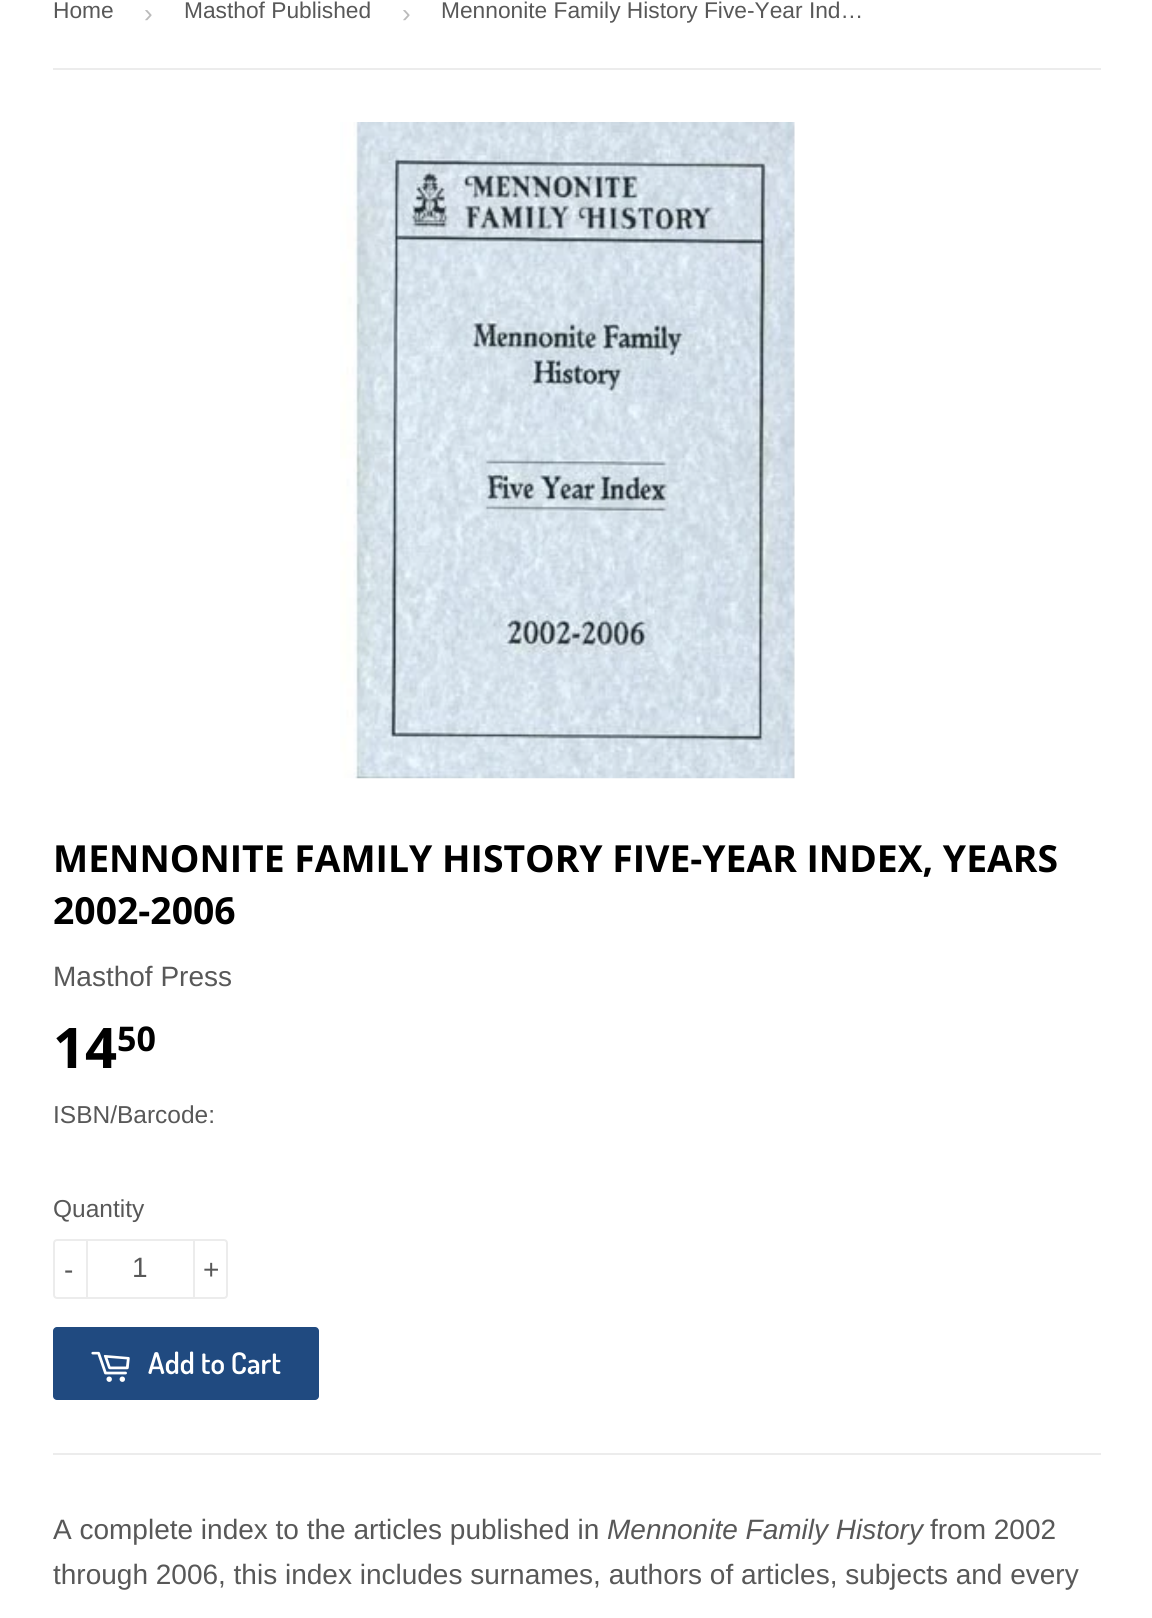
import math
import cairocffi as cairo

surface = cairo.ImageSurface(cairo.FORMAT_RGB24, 1152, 1618)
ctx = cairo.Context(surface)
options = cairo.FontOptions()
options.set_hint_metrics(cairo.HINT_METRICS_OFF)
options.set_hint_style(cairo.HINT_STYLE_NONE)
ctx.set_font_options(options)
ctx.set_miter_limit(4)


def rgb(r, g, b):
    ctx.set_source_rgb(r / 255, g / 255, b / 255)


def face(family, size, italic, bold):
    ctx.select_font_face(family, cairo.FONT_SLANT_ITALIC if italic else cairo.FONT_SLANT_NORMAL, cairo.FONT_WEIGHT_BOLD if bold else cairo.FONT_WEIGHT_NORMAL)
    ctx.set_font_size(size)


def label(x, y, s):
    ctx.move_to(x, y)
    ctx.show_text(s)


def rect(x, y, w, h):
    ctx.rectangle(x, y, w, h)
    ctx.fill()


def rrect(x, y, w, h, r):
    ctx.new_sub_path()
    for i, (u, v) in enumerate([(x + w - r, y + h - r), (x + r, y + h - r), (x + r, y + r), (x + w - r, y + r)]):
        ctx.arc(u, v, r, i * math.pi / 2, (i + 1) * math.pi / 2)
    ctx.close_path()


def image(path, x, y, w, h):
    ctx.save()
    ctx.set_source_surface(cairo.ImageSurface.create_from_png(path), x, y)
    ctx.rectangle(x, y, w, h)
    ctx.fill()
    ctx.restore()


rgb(255, 255, 255)
ctx.paint()
rgb(236, 236, 236)
rect(53, 68, 1048, 2)
face('Liberation Sans', 22.75, 0, 0)
rgb(88, 88, 88)
label(53, 18, 'Home')
face('Liberation Sans', 26, 0, 0)
rgb(187, 187, 187)
label(144, 22, '›')
face('Liberation Sans', 22.75, 0, 0)
rgb(88, 88, 88)
label(184, 18, 'Masthof Published')
face('Liberation Sans', 26, 0, 0)
rgb(187, 187, 187)
label(402, 22, '›')
face('Liberation Sans', 22.75, 0, 0)
rgb(88, 88, 88)
label(441, 18, 'Mennonite Family History Five-Year Ind…')
image('image0.png', 340, 122, 455, 657)
face('Open Sans', 37.3, 0, 1)
rgb(0, 0, 0)
label(53, 872, 'MENNONITE FAMILY HISTORY FIVE-YEAR INDEX, YEARS')
label(53, 924, '2002-2006')
face('Liberation Sans', 28, 0, 0)
rgb(88, 88, 88)
label(53, 986, 'Masthof Press')
face('Open Sans', 56, 0, 1)
rgb(0, 0, 0)
label(53, 1068, '14')
face('Open Sans', 34, 0, 1)
label(117, 1051, '50')
face('Liberation Sans', 24.5, 0, 0)
rgb(88, 88, 88)
label(53, 1123, 'ISBN/Barcode:')
label(53, 1217, 'Quantity')
rrect(54, 1240, 173, 58, 3)
rgb(236, 236, 236)
ctx.stroke()
rect(86, 1239, 2, 60)
face('Liberation Sans', 28, 0, 0)
rgb(88, 88, 88)
label(64, 1279, '-')
label(132, 1277, '1')
rgb(236, 236, 236)
rect(193, 1239, 2, 60)
rgb(88, 88, 88)
label(203, 1279, '+')
rgb(32, 74, 128)
rrect(53, 1327, 266, 73, 4)
ctx.fill()
image('image1.png', 91, 1351, 39, 31)
face('Dosis SemiBold', 29.75, 0, 0)
rgb(255, 255, 255)
label(148, 1374, 'Add to Cart')
rgb(236, 236, 236)
rect(53, 1453, 1048, 2)
face('Liberation Sans', 28, 0, 0)
rgb(88, 88, 88)
label(53, 1539, 'A complete index to the articles published in')
face('Liberation Sans', 28, 1, 0)
label(607, 1539, 'Mennonite Family History')
face('Liberation Sans', 28, 0, 0)
label(930, 1539, 'from 2002')
label(53, 1584, 'through 2006, this index includes surnames, authors of articles, subjects and every')
surface.write_to_png('render.png')
